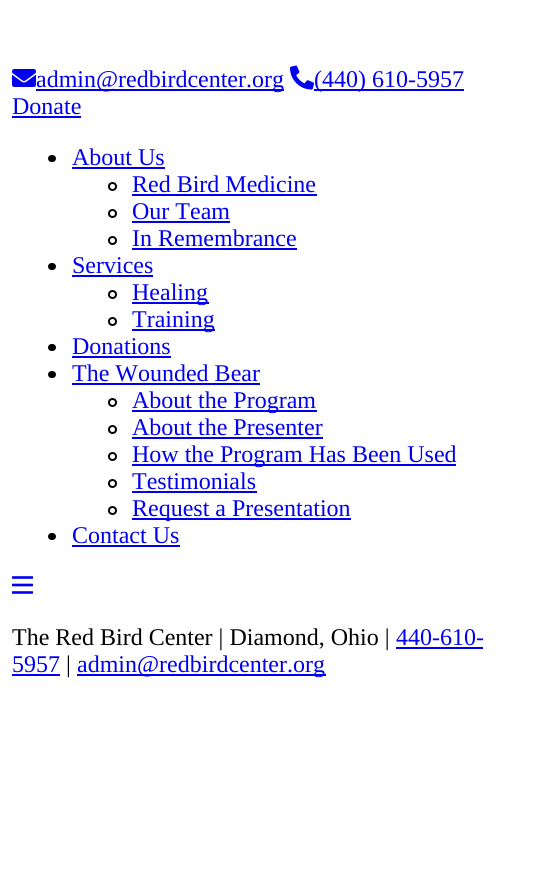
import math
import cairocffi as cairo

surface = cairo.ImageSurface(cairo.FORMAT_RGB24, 537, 871)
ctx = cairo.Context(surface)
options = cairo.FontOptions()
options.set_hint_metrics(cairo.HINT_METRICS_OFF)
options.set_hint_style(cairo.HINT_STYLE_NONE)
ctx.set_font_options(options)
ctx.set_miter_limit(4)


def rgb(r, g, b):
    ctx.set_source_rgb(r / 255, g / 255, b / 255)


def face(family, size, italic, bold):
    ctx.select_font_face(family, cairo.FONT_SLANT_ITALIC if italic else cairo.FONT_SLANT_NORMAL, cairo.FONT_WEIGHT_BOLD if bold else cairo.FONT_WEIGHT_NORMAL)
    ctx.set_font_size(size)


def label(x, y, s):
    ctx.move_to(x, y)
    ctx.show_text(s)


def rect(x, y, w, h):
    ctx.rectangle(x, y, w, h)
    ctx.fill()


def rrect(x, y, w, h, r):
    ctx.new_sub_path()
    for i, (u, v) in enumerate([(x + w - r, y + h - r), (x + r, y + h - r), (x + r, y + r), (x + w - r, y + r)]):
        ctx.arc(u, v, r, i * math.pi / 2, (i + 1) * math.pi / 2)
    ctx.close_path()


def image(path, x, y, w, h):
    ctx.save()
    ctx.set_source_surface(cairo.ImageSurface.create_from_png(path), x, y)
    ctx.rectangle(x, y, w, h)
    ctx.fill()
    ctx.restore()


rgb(255, 255, 255)
ctx.paint()
image('image0.png', 12, 69, 24, 18)
rgb(0, 0, 238)
rect(36, 89, 248, 2)
face('Liberation Serif', 24, 0, 0)
label(36, 87, 'admin@redbirdcenter.org')
image('image1.png', 290, 65, 24, 25)
rect(314, 89, 150, 2)
label(314, 87, '(440) 610-5957')
label(12, 114, 'Donate')
rect(12, 116, 69, 2)
rgb(0, 0, 0)
rrect(48, 155, 8, 7, 3.5)
ctx.fill()
rgb(0, 0, 238)
label(72, 165, 'About Us')
rect(72, 167, 93, 2)
ctx.new_path()
ctx.arc(112.5, 186.5, 3.5, 0, 2 * math.pi)
rgb(0, 0, 0)
ctx.stroke()
rgb(0, 0, 238)
label(132, 192, 'Red Bird Medicine')
rect(132, 194, 185, 2)
ctx.new_path()
ctx.arc(112.5, 213.5, 3.5, 0, 2 * math.pi)
rgb(0, 0, 0)
ctx.stroke()
rgb(0, 0, 238)
label(132, 219, 'Our Team')
rect(132, 221, 98, 2)
ctx.new_path()
ctx.arc(112.5, 240.5, 3.5, 0, 2 * math.pi)
rgb(0, 0, 0)
ctx.stroke()
rgb(0, 0, 238)
label(132, 246, 'In Remembrance')
rect(132, 248, 165, 2)
rgb(0, 0, 0)
rrect(48, 263, 8, 7, 3.5)
ctx.fill()
rgb(0, 0, 238)
label(72, 273, 'Services')
rect(72, 275, 81, 2)
ctx.new_path()
ctx.arc(112.5, 294.5, 3.5, 0, 2 * math.pi)
rgb(0, 0, 0)
ctx.stroke()
rgb(0, 0, 238)
rect(132, 302, 77, 2)
label(132, 300, 'Healing')
ctx.new_path()
ctx.arc(112.5, 321.5, 3.5, 0, 2 * math.pi)
rgb(0, 0, 0)
ctx.stroke()
rgb(0, 0, 238)
rect(132, 329, 83, 2)
label(132, 327, 'Training')
rgb(0, 0, 0)
rrect(48, 344, 8, 7, 3.5)
ctx.fill()
rgb(0, 0, 238)
label(72, 354, 'Donations')
rect(72, 356, 99, 2)
rgb(0, 0, 0)
rrect(48, 371, 8, 7, 3.5)
ctx.fill()
rgb(0, 0, 238)
label(72, 381, 'The Wounded Bear')
rect(72, 383, 188, 2)
ctx.new_path()
ctx.arc(112.5, 402.5, 3.5, 0, 2 * math.pi)
rgb(0, 0, 0)
ctx.stroke()
rgb(0, 0, 238)
rect(132, 410, 185, 2)
label(132, 408, 'About the Program')
ctx.new_path()
ctx.arc(112.5, 429.5, 3.5, 0, 2 * math.pi)
rgb(0, 0, 0)
ctx.stroke()
rgb(0, 0, 238)
label(132, 435, 'About the Presenter')
rect(132, 437, 191, 2)
ctx.new_path()
ctx.arc(112.5, 456.5, 3.5, 0, 2 * math.pi)
rgb(0, 0, 0)
ctx.stroke()
rgb(0, 0, 238)
rect(132, 464, 324, 2)
label(132, 462, 'How the Program Has Been Used')
ctx.new_path()
ctx.arc(112.5, 483.5, 3.5, 0, 2 * math.pi)
rgb(0, 0, 0)
ctx.stroke()
rgb(0, 0, 238)
label(132, 489, 'Testimonials')
rect(132, 491, 125, 2)
ctx.new_path()
ctx.arc(112.5, 510.5, 3.5, 0, 2 * math.pi)
rgb(0, 0, 0)
ctx.stroke()
rgb(0, 0, 238)
rect(132, 518, 219, 2)
label(132, 516, 'Request a Presentation')
rgb(0, 0, 0)
rrect(48, 533, 8, 7, 3.5)
ctx.fill()
rgb(0, 0, 238)
label(72, 543, 'Contact Us')
rect(72, 545, 108, 2)
image('image2.png', 12, 576, 21, 18)
rgb(0, 0, 0)
label(12, 645, 'The Red Bird Center | Diamond, Ohio |')
rgb(0, 0, 238)
label(396, 645, '440-610-')
rect(396, 647, 87, 2)
label(12, 672, '5957')
rect(12, 674, 48, 2)
rgb(0, 0, 0)
label(66, 672, '|')
rgb(0, 0, 238)
rect(77, 674, 249, 2)
label(77, 672, 'admin@redbirdcenter.org')
surface.write_to_png('render.png')
